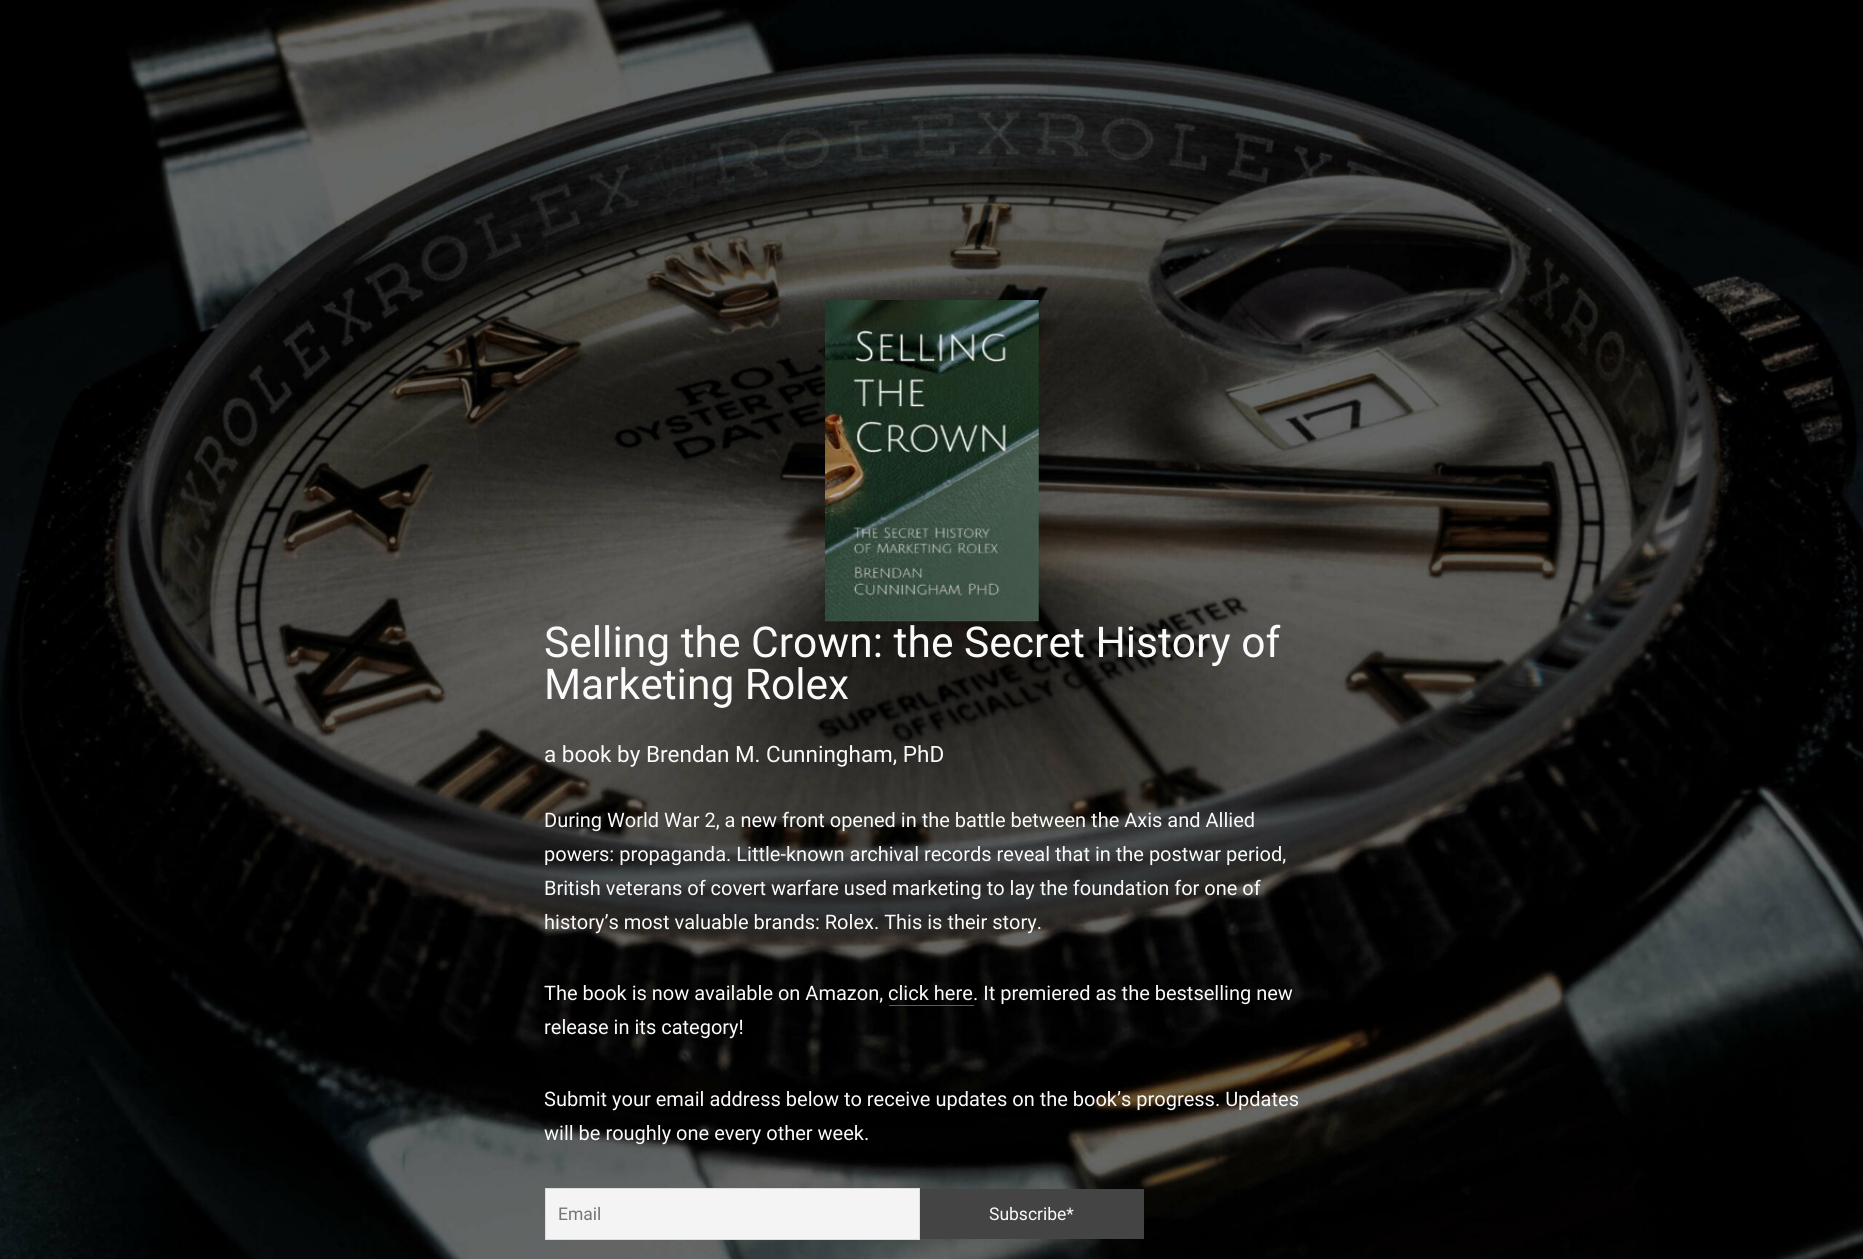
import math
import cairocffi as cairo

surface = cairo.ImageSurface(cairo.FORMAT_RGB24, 1863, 1259)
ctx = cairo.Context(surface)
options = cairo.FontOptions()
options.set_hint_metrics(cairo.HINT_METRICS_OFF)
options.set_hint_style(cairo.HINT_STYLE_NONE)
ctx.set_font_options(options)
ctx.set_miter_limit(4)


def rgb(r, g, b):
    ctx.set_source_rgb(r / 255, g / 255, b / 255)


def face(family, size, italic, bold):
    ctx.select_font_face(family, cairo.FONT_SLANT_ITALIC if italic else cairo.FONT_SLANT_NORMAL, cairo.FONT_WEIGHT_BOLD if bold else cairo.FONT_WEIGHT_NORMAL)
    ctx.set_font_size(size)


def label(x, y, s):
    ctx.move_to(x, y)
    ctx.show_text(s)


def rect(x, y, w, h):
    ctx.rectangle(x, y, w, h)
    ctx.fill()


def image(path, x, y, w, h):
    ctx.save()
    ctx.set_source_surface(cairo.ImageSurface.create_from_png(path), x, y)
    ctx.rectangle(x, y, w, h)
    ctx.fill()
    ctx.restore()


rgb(255, 255, 255)
ctx.paint()
image('image0.png', 0, 0, 1863, 1259)
image('image1.png', 825, 300, 214, 322)
face('Roboto', 42.5, 0, 0)
rgb(250, 250, 250)
label(544, 657, 'Selling the Crown: the Secret History of')
label(544, 699, 'Marketing Rolex')
face('Roboto', 22.5, 0, 0)
label(544, 762, 'a book by Brendan M. Cunningham, PhD')
face('Roboto', 20, 0, 0)
label(544, 827, 'During World War 2, a new front opened in the battle between the Axis and Allied')
label(544, 861, 'powers: propaganda. Little-known archival records reveal that in the postwar period,')
label(544, 895, 'British veterans of covert warfare used marketing to lay the foundation for one of')
label(544, 929, 'history’s most valuable brands: Rolex. This is their story.')
label(544, 1000, 'The book is now available on Amazon,')
label(888, 1000, 'click here')
rgb(0, 124, 186)
rect(889, 1005, 85, 1)
rgb(250, 250, 250)
label(973, 1000, '. It premiered as the bestselling new')
label(544, 1034, 'release in its category!')
label(544, 1106, 'Submit your email address below to receive updates on the book’s progress. Updates')
label(544, 1140, 'will be roughly one every other week.')
rgb(244, 244, 244)
ctx.rectangle(545.5, 1188.5, 374, 51)
ctx.fill_preserve()
rgb(221, 221, 221)
ctx.set_line_width(1)
ctx.stroke()
face('Roboto', 17.5, 0, 0)
rgb(117, 117, 117)
label(558, 1220, 'Email')
rgb(68, 68, 68)
rect(920, 1189, 224, 50)
rgb(250, 250, 250)
label(989, 1220, 'Subscribe*')
surface.write_to_png('render.png')
